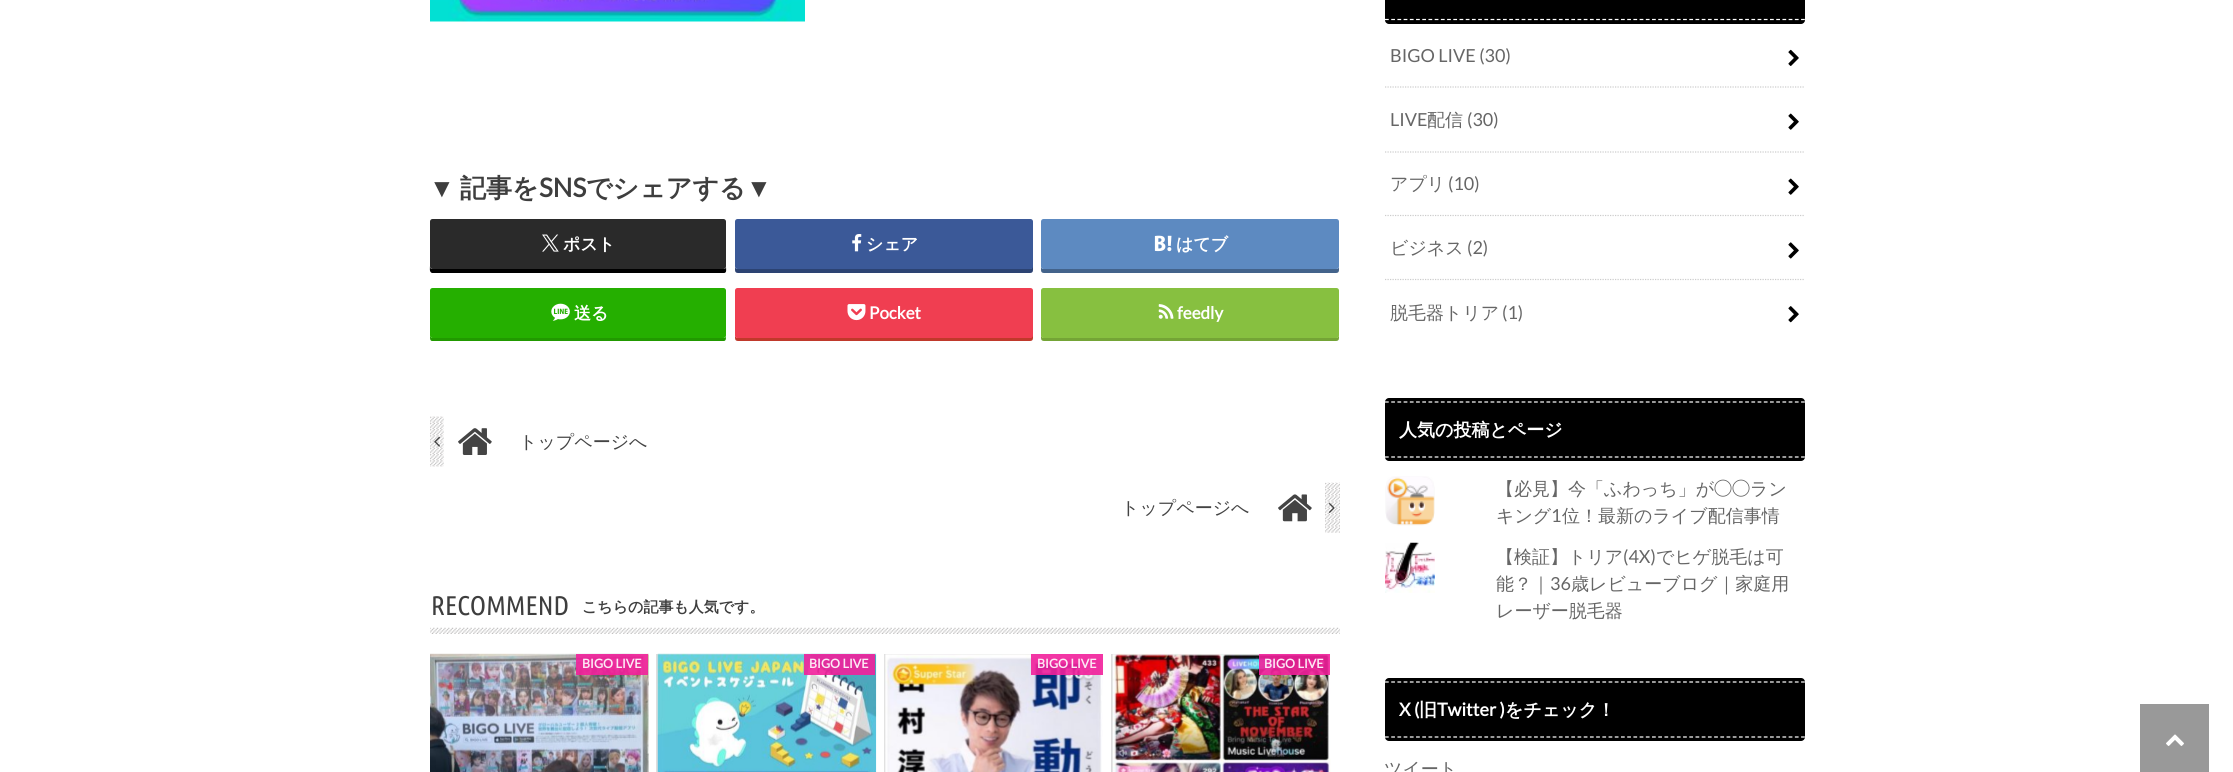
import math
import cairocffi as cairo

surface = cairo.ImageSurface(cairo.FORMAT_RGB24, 2233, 772)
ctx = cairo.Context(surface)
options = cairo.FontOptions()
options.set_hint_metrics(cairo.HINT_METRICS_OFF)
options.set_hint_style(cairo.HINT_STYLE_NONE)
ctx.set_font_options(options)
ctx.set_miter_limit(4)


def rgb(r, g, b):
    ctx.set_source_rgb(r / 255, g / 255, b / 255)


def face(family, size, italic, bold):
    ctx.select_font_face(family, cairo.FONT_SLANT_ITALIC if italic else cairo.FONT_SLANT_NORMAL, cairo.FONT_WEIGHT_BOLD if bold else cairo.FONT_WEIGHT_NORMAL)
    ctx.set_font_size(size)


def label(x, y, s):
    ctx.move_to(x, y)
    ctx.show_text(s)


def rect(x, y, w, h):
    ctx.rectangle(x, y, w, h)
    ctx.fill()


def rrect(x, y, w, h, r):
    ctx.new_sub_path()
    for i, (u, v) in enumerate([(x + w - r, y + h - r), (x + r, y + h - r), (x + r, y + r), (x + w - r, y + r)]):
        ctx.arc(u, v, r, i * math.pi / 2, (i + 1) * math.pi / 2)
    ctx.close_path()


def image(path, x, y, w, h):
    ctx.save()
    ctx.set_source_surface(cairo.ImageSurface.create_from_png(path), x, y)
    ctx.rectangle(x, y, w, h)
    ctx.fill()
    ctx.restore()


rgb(255, 255, 255)
ctx.paint()
image('image0.png', 430, 0, 375, 22)
face('Liberation Sans', 26, 0, 1)
rgb(62, 62, 62)
label(429, 197, '▼')
face('WenQuanYi Zen Hei', 26, 0, 1)
label(460, 197, '記事を')
face('Lato', 26, 0, 1)
label(539, 197, 'SNS')
face('WenQuanYi Zen Hei', 26, 0, 1)
label(586, 197, 'でシェアする')
face('Liberation Sans', 26, 0, 1)
label(746, 197, '▼')
rgb(0, 0, 0)
ctx.new_path()
ctx.move_to(430, 266)
ctx.curve_to(430, 268, 429, 272, 432, 273)
ctx.line_to(724, 273)
ctx.curve_to(727, 273, 726, 269, 726, 267)
ctx.curve_to(726, 268, 725, 269, 724, 269)
ctx.line_to(432, 269)
ctx.curve_to(431, 269, 430, 268, 430, 266)
ctx.close_path()
ctx.fill()
rgb(42, 42, 42)
rrect(430, 219, 296, 50, 2.5)
ctx.fill()
image('image1.png', 542, 234, 17, 18)
face('WenQuanYi Zen Hei', 17, 0, 1)
rgb(255, 255, 255)
label(563, 250, 'ポスト')
rgb(44, 67, 115)
ctx.new_path()
ctx.move_to(735, 266)
ctx.line_to(735, 270)
ctx.curve_to(735, 272, 736, 273, 738, 273)
ctx.line_to(1030, 273)
ctx.curve_to(1032, 273, 1033, 272, 1033, 270)
ctx.line_to(1033, 226)
ctx.line_to(1032, 224)
ctx.line_to(1032, 266)
ctx.curve_to(1032, 268, 1031, 269, 1030, 269)
ctx.line_to(738, 269)
ctx.curve_to(736, 269, 735, 268, 735, 266)
ctx.close_path()
ctx.fill()
rgb(59, 89, 152)
rrect(735, 219, 298, 50, 2.5)
ctx.fill()
image('image2.png', 852, 234, 10, 18)
rgb(255, 255, 255)
label(866, 250, 'シェア')
rgb(67, 99, 139)
ctx.new_path()
ctx.move_to(1041, 224)
ctx.line_to(1041, 270)
ctx.curve_to(1041, 272, 1042, 273, 1044, 273)
ctx.line_to(1336, 273)
ctx.curve_to(1338, 273, 1339, 272, 1339, 270)
ctx.line_to(1339, 224)
ctx.line_to(1339, 266)
ctx.curve_to(1339, 268, 1338, 269, 1336, 269)
ctx.line_to(1044, 269)
ctx.curve_to(1042, 269, 1041, 268, 1041, 266)
ctx.close_path()
ctx.fill()
rgb(93, 138, 193)
rrect(1041, 219, 298, 50, 2.5)
ctx.fill()
image('image3.png', 1154, 235, 18, 17)
rgb(255, 255, 255)
label(1176, 250, 'はてブ')
rgb(33, 153, 0)
ctx.new_path()
ctx.move_to(430, 335)
ctx.line_to(430, 338)
ctx.curve_to(430, 340, 431, 341, 432, 341)
ctx.line_to(724, 341)
ctx.curve_to(725, 341, 726, 340, 726, 338)
ctx.line_to(726, 336)
ctx.curve_to(726, 337, 725, 338, 724, 338)
ctx.line_to(432, 338)
ctx.curve_to(431, 338, 430, 336, 430, 335)
ctx.close_path()
ctx.fill()
rgb(37, 175, 0)
rrect(430, 288, 296, 50, 2.5)
ctx.fill()
image('image4.png', 551, 303, 19, 18)
rgb(255, 255, 255)
label(574, 319, '送る')
rgb(192, 57, 43)
ctx.new_path()
ctx.move_to(735, 335)
ctx.line_to(735, 338)
ctx.curve_to(735, 340, 736, 341, 738, 341)
ctx.line_to(1030, 341)
ctx.curve_to(1032, 341, 1033, 340, 1033, 338)
ctx.line_to(1033, 294)
ctx.line_to(1032, 292)
ctx.line_to(1032, 335)
ctx.curve_to(1032, 336, 1031, 338, 1030, 338)
ctx.line_to(738, 338)
ctx.curve_to(736, 338, 735, 336, 735, 335)
ctx.close_path()
ctx.fill()
rgb(240, 62, 81)
rrect(735, 288, 298, 50, 2.5)
ctx.fill()
image('image5.png', 847, 304, 19, 17)
face('Lato', 17, 0, 1)
rgb(255, 255, 255)
label(869, 319, 'Pocket')
rgb(116, 164, 54)
ctx.new_path()
ctx.move_to(1041, 292)
ctx.line_to(1041, 338)
ctx.curve_to(1041, 340, 1042, 341, 1044, 341)
ctx.line_to(1336, 341)
ctx.curve_to(1338, 341, 1339, 340, 1339, 338)
ctx.line_to(1339, 292)
ctx.line_to(1339, 335)
ctx.curve_to(1339, 336, 1338, 338, 1336, 338)
ctx.line_to(1044, 338)
ctx.curve_to(1042, 338, 1041, 336, 1041, 335)
ctx.close_path()
ctx.fill()
rgb(135, 192, 64)
rrect(1041, 288, 298, 50, 2.5)
ctx.fill()
image('image6.png', 1158, 304, 16, 15)
rgb(255, 255, 255)
label(1177, 319, 'feedly')
image('image7.png', 430, 416, 14, 51)
image('image8.png', 434, 436, 6, 11)
image('image9.png', 458, 428, 34, 27)
face('WenQuanYi Zen Hei Medium', 18, 0, 0)
rgb(68, 68, 68)
label(519, 448, 'トップページへ')
label(1121, 514, 'トップページへ')
image('image10.png', 1278, 494, 34, 28)
image('image11.png', 1325, 482, 15, 51)
image('image12.png', 1328, 503, 7, 10)
image('image13.png', 430, 627, 910, 7)
face('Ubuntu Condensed', 27, 0, 0)
rgb(62, 62, 62)
label(431, 615, 'RECOMMEND')
face('WenQuanYi Zen Hei', 15, 0, 1)
label(582, 612, 'こちらの記事も人気です。')
rgb(221, 221, 221)
rect(430, 654, 218, 1)
image('image14.png', 430, 653, 219, 119)
ctx.set_source_rgba(0.949, 0.129, 0.608, 0.9)
rect(576, 654, 72, 21)
face('Lato', 12.5, 0, 1)
rgb(253, 234, 245)
label(582, 668, 'BIGO LIVE')
rgb(221, 221, 221)
rect(656, 654, 219, 118)
image('image15.png', 657, 653, 220, 119)
ctx.set_source_rgba(0.949, 0.129, 0.608, 0.9)
rect(804, 654, 71, 21)
rgb(253, 234, 245)
label(809, 668, 'BIGO LIVE')
rgb(221, 221, 221)
rect(884, 654, 219, 118)
image('image16.png', 884, 654, 219, 118)
ctx.set_source_rgba(0.949, 0.129, 0.608, 0.9)
rect(1031, 654, 72, 21)
rgb(253, 234, 245)
label(1037, 668, 'BIGO LIVE')
rgb(221, 221, 221)
rect(1111, 654, 219, 118)
image('image17.png', 1112, 653, 219, 119)
ctx.set_source_rgba(0.949, 0.129, 0.608, 0.9)
rect(1259, 654, 71, 21)
rgb(253, 234, 245)
label(1264, 668, 'BIGO LIVE')
rgb(0, 0, 0)
rrect(1385, -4, 420, 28, 4)
ctx.fill()
ctx.new_path()
ctx.move_to(1385, 19.5)
ctx.line_to(1805, 19.5)
rgb(255, 255, 255)
ctx.set_line_width(1.2)
ctx.set_dash([3.75, 2.46])
ctx.stroke()
ctx.new_path()
ctx.move_to(1385, 87)
ctx.line_to(1805, 87)
rgb(204, 204, 204)
ctx.set_dash([1.25, 1.25])
ctx.stroke()
face('Lato', 18, 0, 0)
rgb(102, 102, 102)
label(1390, 62, 'BIGO LIVE (30)')
image('image18.png', 1788, 49, 11, 17)
ctx.new_path()
ctx.move_to(1385, 152)
ctx.line_to(1805, 152)
rgb(204, 204, 204)
ctx.stroke()
rgb(102, 102, 102)
label(1390, 126, 'LIVE')
face('WenQuanYi Zen Hei Medium', 18, 0, 0)
label(1427, 126, '配信')
face('Lato', 18, 0, 0)
label(1467, 126, '(30)')
image('image19.png', 1788, 113, 11, 17)
ctx.new_path()
ctx.move_to(1385, 215.5)
ctx.line_to(1805, 215.5)
rgb(204, 204, 204)
ctx.stroke()
face('WenQuanYi Zen Hei Medium', 18, 0, 0)
rgb(102, 102, 102)
label(1390, 190, 'アプリ')
face('Lato', 18, 0, 0)
label(1448, 190, '(10)')
image('image19.png', 1788, 178, 11, 17)
ctx.new_path()
ctx.move_to(1385, 279.5)
ctx.line_to(1805, 279.5)
rgb(204, 204, 204)
ctx.stroke()
face('WenQuanYi Zen Hei Medium', 18, 0, 0)
rgb(102, 102, 102)
label(1390, 254, 'ビジネス')
face('Lato', 18, 0, 0)
label(1467, 254, '(2)')
image('image20.png', 1788, 242, 11, 17)
face('WenQuanYi Zen Hei Medium', 18, 0, 0)
label(1390, 319, '脱毛器トリア')
face('Lato', 18, 0, 0)
label(1502, 319, '(1)')
image('image21.png', 1788, 306, 11, 17)
rgb(0, 0, 0)
rrect(1385, 398, 420, 63, 4)
ctx.fill()
ctx.new_path()
ctx.move_to(1385, 402)
ctx.line_to(1805, 402)
rgb(255, 255, 255)
ctx.set_dash([3.75, 2.46])
ctx.stroke()
ctx.new_path()
ctx.move_to(1385, 457)
ctx.line_to(1805, 457)
ctx.stroke()
face('WenQuanYi Zen Hei', 18, 0, 1)
label(1399, 436, '人気の投稿とページ')
image('image22.png', 1385, 476, 50, 50)
face('WenQuanYi Zen Hei Medium', 18, 0, 0)
rgb(102, 102, 102)
label(1496, 495, '【必見】今「ふわっち」が')
face('IPAPGothic', 18, 0, 0)
label(1714, 495, '◯◯')
face('WenQuanYi Zen Hei Medium', 18, 0, 0)
label(1750, 495, 'ラン')
label(1496, 522, 'キング')
face('Lato', 18, 0, 0)
label(1551, 522, '1')
face('WenQuanYi Zen Hei Medium', 18, 0, 0)
label(1562, 522, '位！最新のライブ配信事情')
image('image23.png', 1385, 542, 50, 51)
label(1496, 563, '【検証】トリア')
face('Lato', 18, 0, 0)
label(1623, 563, '(4X)')
face('WenQuanYi Zen Hei Medium', 18, 0, 0)
label(1656, 563, 'でヒゲ脱毛は可')
label(1496, 590, '能？｜')
face('Lato', 18, 0, 0)
label(1550, 590, '36')
face('WenQuanYi Zen Hei Medium', 18, 0, 0)
label(1571, 590, '歳レビューブログ｜家庭用')
label(1496, 617, 'レーザー脱毛器')
rgb(0, 0, 0)
rrect(1385, 678, 420, 63, 4)
ctx.fill()
ctx.new_path()
ctx.move_to(1385, 682)
ctx.line_to(1805, 682)
rgb(255, 255, 255)
ctx.stroke()
ctx.new_path()
ctx.move_to(1385, 737)
ctx.line_to(1805, 737)
ctx.stroke()
face('Lato', 18, 0, 1)
label(1399, 716, 'X (')
face('WenQuanYi Zen Hei', 18, 0, 1)
label(1419, 716, '旧')
face('Lato', 18, 0, 1)
label(1437, 716, 'Twitter )')
face('WenQuanYi Zen Hei', 18, 0, 1)
label(1505, 716, 'をチェック！')
face('WenQuanYi Zen Hei Medium', 18, 0, 0)
rgb(102, 102, 102)
label(1384, 775, 'ツイート')
rgb(153, 153, 153)
rect(2140, 704, 69, 68)
image('image24.png', 2166, 734, 18, 12)
surface.write_to_png('render.png')
